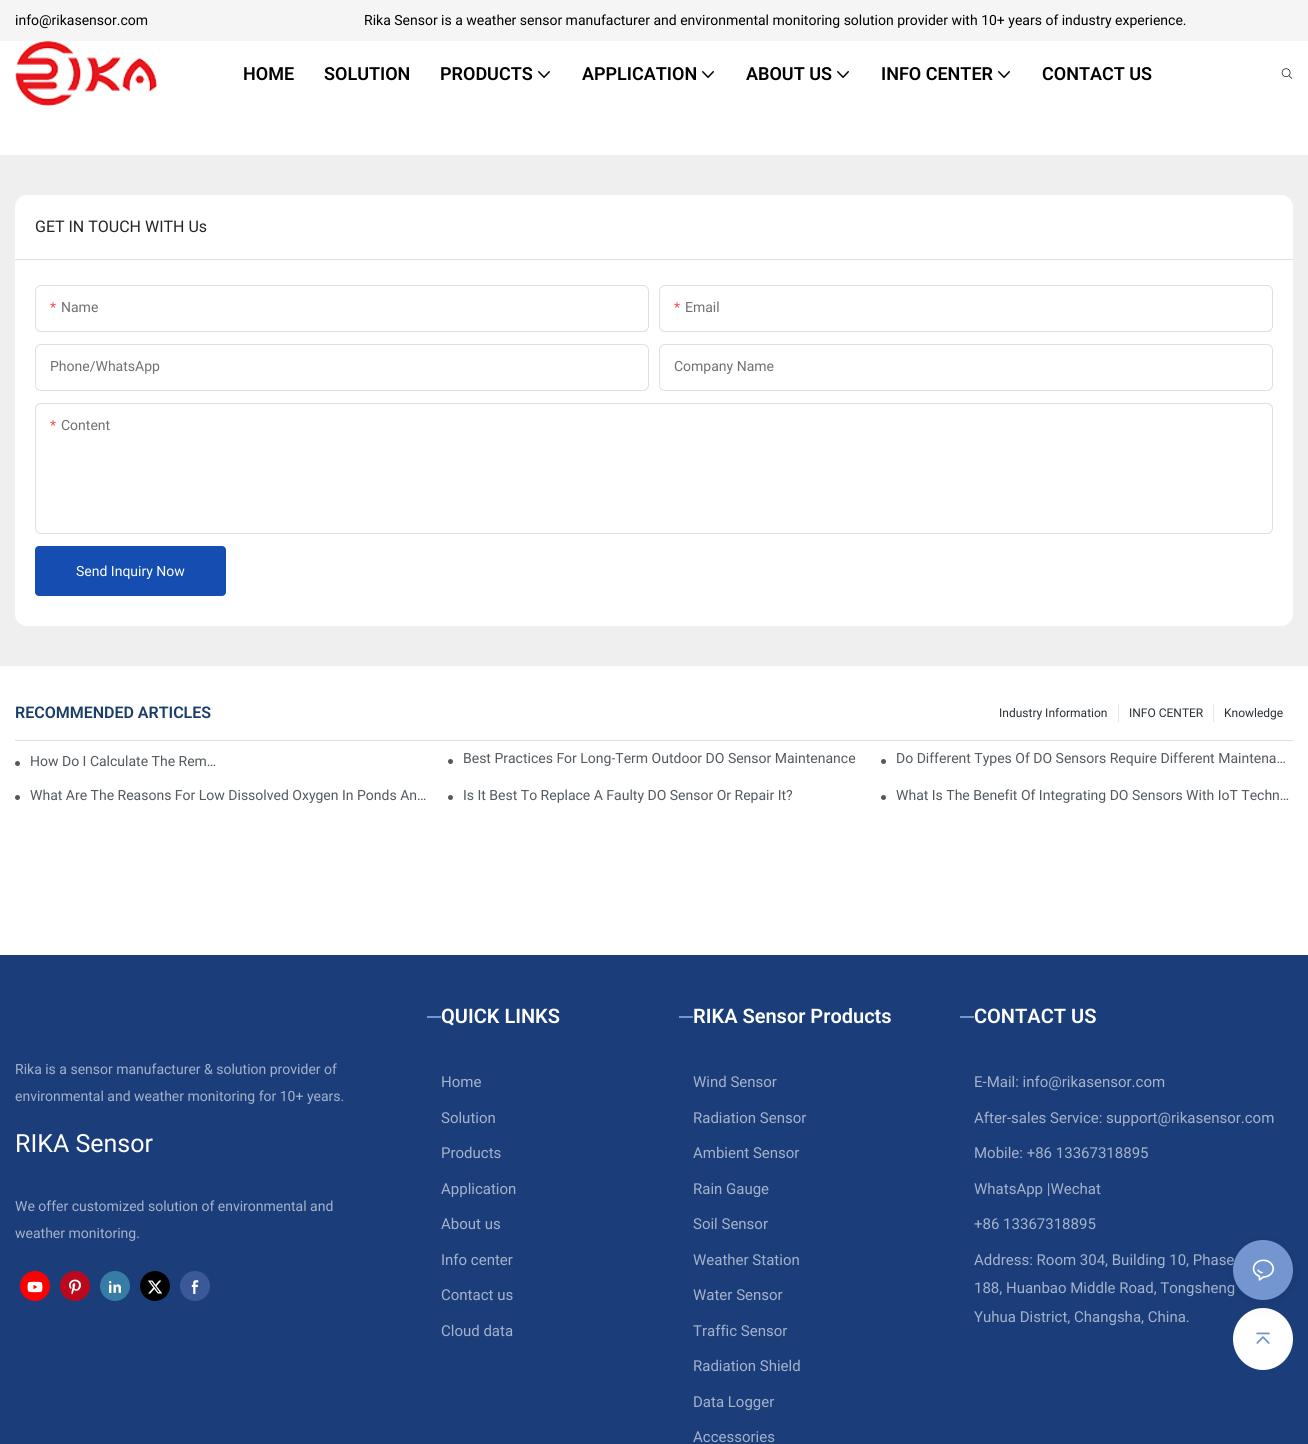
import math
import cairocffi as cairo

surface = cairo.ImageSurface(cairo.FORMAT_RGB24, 1308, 1444)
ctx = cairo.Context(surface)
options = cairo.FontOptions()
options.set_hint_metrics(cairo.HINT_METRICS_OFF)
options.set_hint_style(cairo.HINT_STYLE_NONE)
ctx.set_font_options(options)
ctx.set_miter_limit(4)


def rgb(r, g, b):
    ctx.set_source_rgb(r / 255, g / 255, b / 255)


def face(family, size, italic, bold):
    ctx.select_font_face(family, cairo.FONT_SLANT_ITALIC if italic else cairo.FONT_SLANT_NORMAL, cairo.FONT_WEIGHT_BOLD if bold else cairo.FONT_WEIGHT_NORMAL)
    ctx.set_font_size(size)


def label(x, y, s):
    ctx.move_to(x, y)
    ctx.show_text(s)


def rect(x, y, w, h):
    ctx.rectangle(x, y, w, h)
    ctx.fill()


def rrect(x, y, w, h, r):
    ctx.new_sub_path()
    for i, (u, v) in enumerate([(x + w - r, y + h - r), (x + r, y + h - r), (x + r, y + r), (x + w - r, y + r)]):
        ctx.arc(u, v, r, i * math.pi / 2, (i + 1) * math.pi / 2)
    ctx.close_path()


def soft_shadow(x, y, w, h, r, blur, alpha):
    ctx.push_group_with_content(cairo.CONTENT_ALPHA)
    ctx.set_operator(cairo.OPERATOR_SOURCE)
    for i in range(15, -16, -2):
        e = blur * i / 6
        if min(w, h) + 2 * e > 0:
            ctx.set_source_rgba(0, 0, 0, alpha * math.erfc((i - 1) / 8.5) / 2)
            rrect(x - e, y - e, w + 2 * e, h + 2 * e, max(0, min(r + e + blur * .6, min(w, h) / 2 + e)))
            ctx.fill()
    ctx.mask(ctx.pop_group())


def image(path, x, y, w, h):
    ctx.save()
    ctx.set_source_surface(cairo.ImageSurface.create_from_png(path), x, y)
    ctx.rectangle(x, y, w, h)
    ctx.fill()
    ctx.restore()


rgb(255, 255, 255)
ctx.paint()
rgb(245, 245, 245)
rect(0, 0, 1308, 41)
face('Roboto', 14, 0, 0)
rgb(0, 0, 0)
label(15, 25, 'info@rikasensor.com')
label(364, 25, 'Rika Sensor is a weather sensor manufacturer and environmental monitoring solution provider with 10+ years of industry experience.')
image('image0.png', 15, 41, 142, 65)
face('Roboto SemiBold', 18, 0, 0)
label(243, 80, 'HOME')
label(324, 80, 'SOLUTION')
label(440, 80, 'PRODUCTS')
image('image1.png', 538, 71, 12, 7)
label(582, 80, 'APPLICATION')
image('image1.png', 702, 71, 12, 7)
label(746, 80, 'ABOUT US')
image('image1.png', 837, 71, 12, 7)
label(881, 80, 'INFO CENTER')
image('image1.png', 998, 71, 12, 7)
label(1042, 80, 'CONTACT US')
image('image2.png', 1281, 68, 12, 11)
rgb(239, 239, 239)
rect(0, 155, 1308, 511)
rgb(255, 255, 255)
rrect(15, 195, 1278, 431, 12)
ctx.fill()
rgb(223, 223, 225)
rect(15, 259, 1278, 1)
face('Roboto', 16, 0, 0)
rgb(33, 37, 41)
label(35, 232, 'GET IN TOUCH WITH Us')
rrect(35.5, 285.5, 613, 46, 5.5)
rgb(223, 223, 225)
ctx.set_line_width(1)
ctx.stroke()
face('Roboto', 14, 0, 0)
rgb(255, 77, 77)
label(50, 312, '*')
rgb(112, 112, 112)
label(61, 312, 'Name')
rrect(659.5, 285.5, 613, 46, 5.5)
rgb(223, 223, 225)
ctx.stroke()
rgb(255, 77, 77)
label(674, 312, '*')
rgb(112, 112, 112)
label(685, 312, 'Email')
rrect(35.5, 344.5, 613, 46, 5.5)
rgb(223, 223, 225)
ctx.stroke()
rgb(112, 112, 112)
label(50, 371, 'Phone/WhatsApp')
rrect(659.5, 344.5, 613, 46, 5.5)
rgb(223, 223, 225)
ctx.stroke()
rgb(112, 112, 112)
label(674, 371, 'Company Name')
rrect(35.5, 403.5, 1237, 130, 5.5)
rgb(223, 223, 225)
ctx.stroke()
rgb(255, 77, 77)
label(50, 430, '*')
rgb(112, 112, 112)
label(61, 430, 'Content')
rgb(21, 78, 176)
rrect(35, 546, 191, 50, 4)
ctx.fill()
rgb(255, 255, 255)
label(76, 576, 'Send Inquiry Now')
rgb(223, 223, 225)
rect(15, 740, 1278, 1)
face('Roboto SemiBold', 16, 0, 0)
rgb(24, 61, 102)
label(15, 718, 'RECOMMENDED ARTICLES')
face('Roboto', 12, 0, 0)
rgb(40, 48, 54)
label(999, 717, 'Industry Information')
rgb(230, 230, 230)
rect(1118, 704, 1, 18)
rgb(40, 48, 54)
label(1129, 717, 'INFO CENTER')
rgb(230, 230, 230)
rect(1213, 704, 1, 18)
rgb(40, 48, 54)
label(1224, 717, 'Knowledge')
rgb(92, 92, 92)
ctx.new_path()
ctx.arc(17.5, 763.5, 1.5, 0, 2 * math.pi)
ctx.fill_preserve()
rgb(83, 89, 94)
ctx.set_line_width(2)
ctx.stroke()
face('Roboto', 14, 0, 0)
label(30, 766, 'How Do I Calculate The Rem…')
rgb(92, 92, 92)
ctx.new_path()
ctx.arc(450.5, 761.5, 1.5, 0, 2 * math.pi)
ctx.fill_preserve()
rgb(83, 89, 94)
ctx.stroke()
label(463, 763, 'Best Practices For Long-Term Outdoor DO Sensor Maintenance')
rgb(92, 92, 92)
ctx.new_path()
ctx.arc(883.5, 761.5, 1.5, 0, 2 * math.pi)
ctx.fill_preserve()
rgb(83, 89, 94)
ctx.stroke()
label(896, 763, 'Do Different Types Of DO Sensors Require Different Maintena…')
rgb(92, 92, 92)
ctx.new_path()
ctx.arc(17.5, 797.5, 1.5, 0, 2 * math.pi)
ctx.fill_preserve()
rgb(83, 89, 94)
ctx.stroke()
label(30, 800, 'What Are The Reasons For Low Dissolved Oxygen In Ponds An…')
rgb(92, 92, 92)
ctx.new_path()
ctx.arc(450.5, 797.5, 1.5, 0, 2 * math.pi)
ctx.fill_preserve()
rgb(83, 89, 94)
ctx.stroke()
label(463, 800, 'Is It Best To Replace A Faulty DO Sensor Or Repair It?')
rgb(92, 92, 92)
ctx.new_path()
ctx.arc(883.5, 797.5, 1.5, 0, 2 * math.pi)
ctx.fill_preserve()
rgb(83, 89, 94)
ctx.stroke()
label(896, 800, 'What Is The Benefit Of Integrating DO Sensors With IoT Techn…')
rgb(27, 62, 123)
rect(0, 955, 1308, 489)
rgb(164, 178, 202)
label(15, 1074, 'Rika is a sensor manufacturer & solution provider of')
label(15, 1101, 'environmental and weather monitoring for 10+ years.')
face('Roboto', 25, 0, 0)
rgb(255, 255, 255)
label(15, 1152, 'RIKA Sensor')
face('Roboto', 14, 0, 0)
rgb(164, 178, 202)
label(15, 1211, 'We offer customized solution of environmental and')
label(15, 1238, 'weather monitoring.')
rgb(255, 0, 0)
ctx.new_path()
ctx.arc(35, 1286, 15, 0, 2 * math.pi)
ctx.fill()
image('image3.png', 27, 1281, 16, 12)
rgb(188, 8, 28)
ctx.arc(75, 1286, 15, 0, 2 * math.pi)
ctx.fill()
image('image4.png', 69, 1279, 12, 16)
rgb(55, 124, 165)
ctx.arc(115, 1286, 15, 0, 2 * math.pi)
ctx.fill()
image('image5.png', 109, 1281, 12, 12)
rgb(0, 0, 0)
ctx.arc(155, 1286, 15, 0, 2 * math.pi)
ctx.fill()
image('image6.png', 148, 1280, 15, 14)
rgb(59, 89, 152)
ctx.arc(195, 1286, 15, 0, 2 * math.pi)
ctx.fill()
image('image7.png', 191, 1280, 8, 14)
rgb(115, 149, 208)
rect(427, 1016, 14, 2)
face('Roboto SemiBold', 20, 0, 0)
rgb(255, 255, 255)
label(441, 1023, 'QUICK LINKS')
face('Roboto', 15, 0, 0)
rgb(164, 178, 202)
label(441, 1087, 'Home')
label(441, 1123, 'Solution')
label(441, 1158, 'Products')
label(441, 1194, 'Application')
label(441, 1229, 'About us')
label(441, 1265, 'Info center')
label(441, 1300, 'Contact us')
label(441, 1336, 'Cloud data')
rgb(115, 149, 208)
rect(679, 1016, 14, 2)
face('Roboto SemiBold', 20, 0, 0)
rgb(255, 255, 255)
label(693, 1023, 'RIKA Sensor Products')
face('Roboto', 15, 0, 0)
rgb(164, 178, 202)
label(693, 1087, 'Wind Sensor')
label(693, 1123, 'Radiation Sensor')
label(693, 1158, 'Ambient Sensor')
label(693, 1194, 'Rain Gauge')
label(693, 1229, 'Soil Sensor')
label(693, 1265, 'Weather Station')
label(693, 1300, 'Water Sensor')
label(693, 1336, 'Traffic Sensor')
label(693, 1371, 'Radiation Shield')
label(693, 1407, 'Data Logger')
label(693, 1442, 'Accessories')
rgb(115, 149, 208)
rect(960, 1016, 14, 2)
face('Roboto SemiBold', 20, 0, 0)
rgb(255, 255, 255)
label(974, 1023, 'CONTACT US')
face('Roboto', 15, 0, 0)
rgb(164, 178, 202)
label(974, 1087, 'E-Mail: info@rikasensor.com')
label(974, 1123, 'After-sales Service: support@rikasensor.com')
label(974, 1158, 'Mobile: +86 13367318895')
label(974, 1194, 'WhatsApp |Wechat')
label(974, 1229, '+86 13367318895')
label(974, 1265, 'Address: Room 304, Building 10, Phase')
label(974, 1293, '188, Huanbao Middle Road, Tongsheng')
label(974, 1322, 'Yuhua District, Changsha, China.')
rgb(255, 255, 255)
ctx.new_path()
ctx.move_to(1263, 1308)
ctx.curve_to(1279.5, 1308, 1293, 1322, 1293, 1339)
ctx.curve_to(1293, 1356, 1279.5, 1370, 1263, 1370)
ctx.curve_to(1246.5, 1370, 1233, 1356, 1233, 1339)
ctx.curve_to(1233, 1322, 1246.5, 1308, 1263, 1308)
ctx.close_path()
ctx.fill()
rgb(0, 0, 0)
soft_shadow(1233, 1242, 60, 60, 30, 8, 0.12)
rgb(115, 149, 208)
ctx.arc(1263, 1270, 30, 0, 2 * math.pi)
ctx.fill()
image('image8.png', 1252, 1259, 22, 22)
image('image9.png', 1256, 1332, 14, 12)
surface.write_to_png('render.png')
